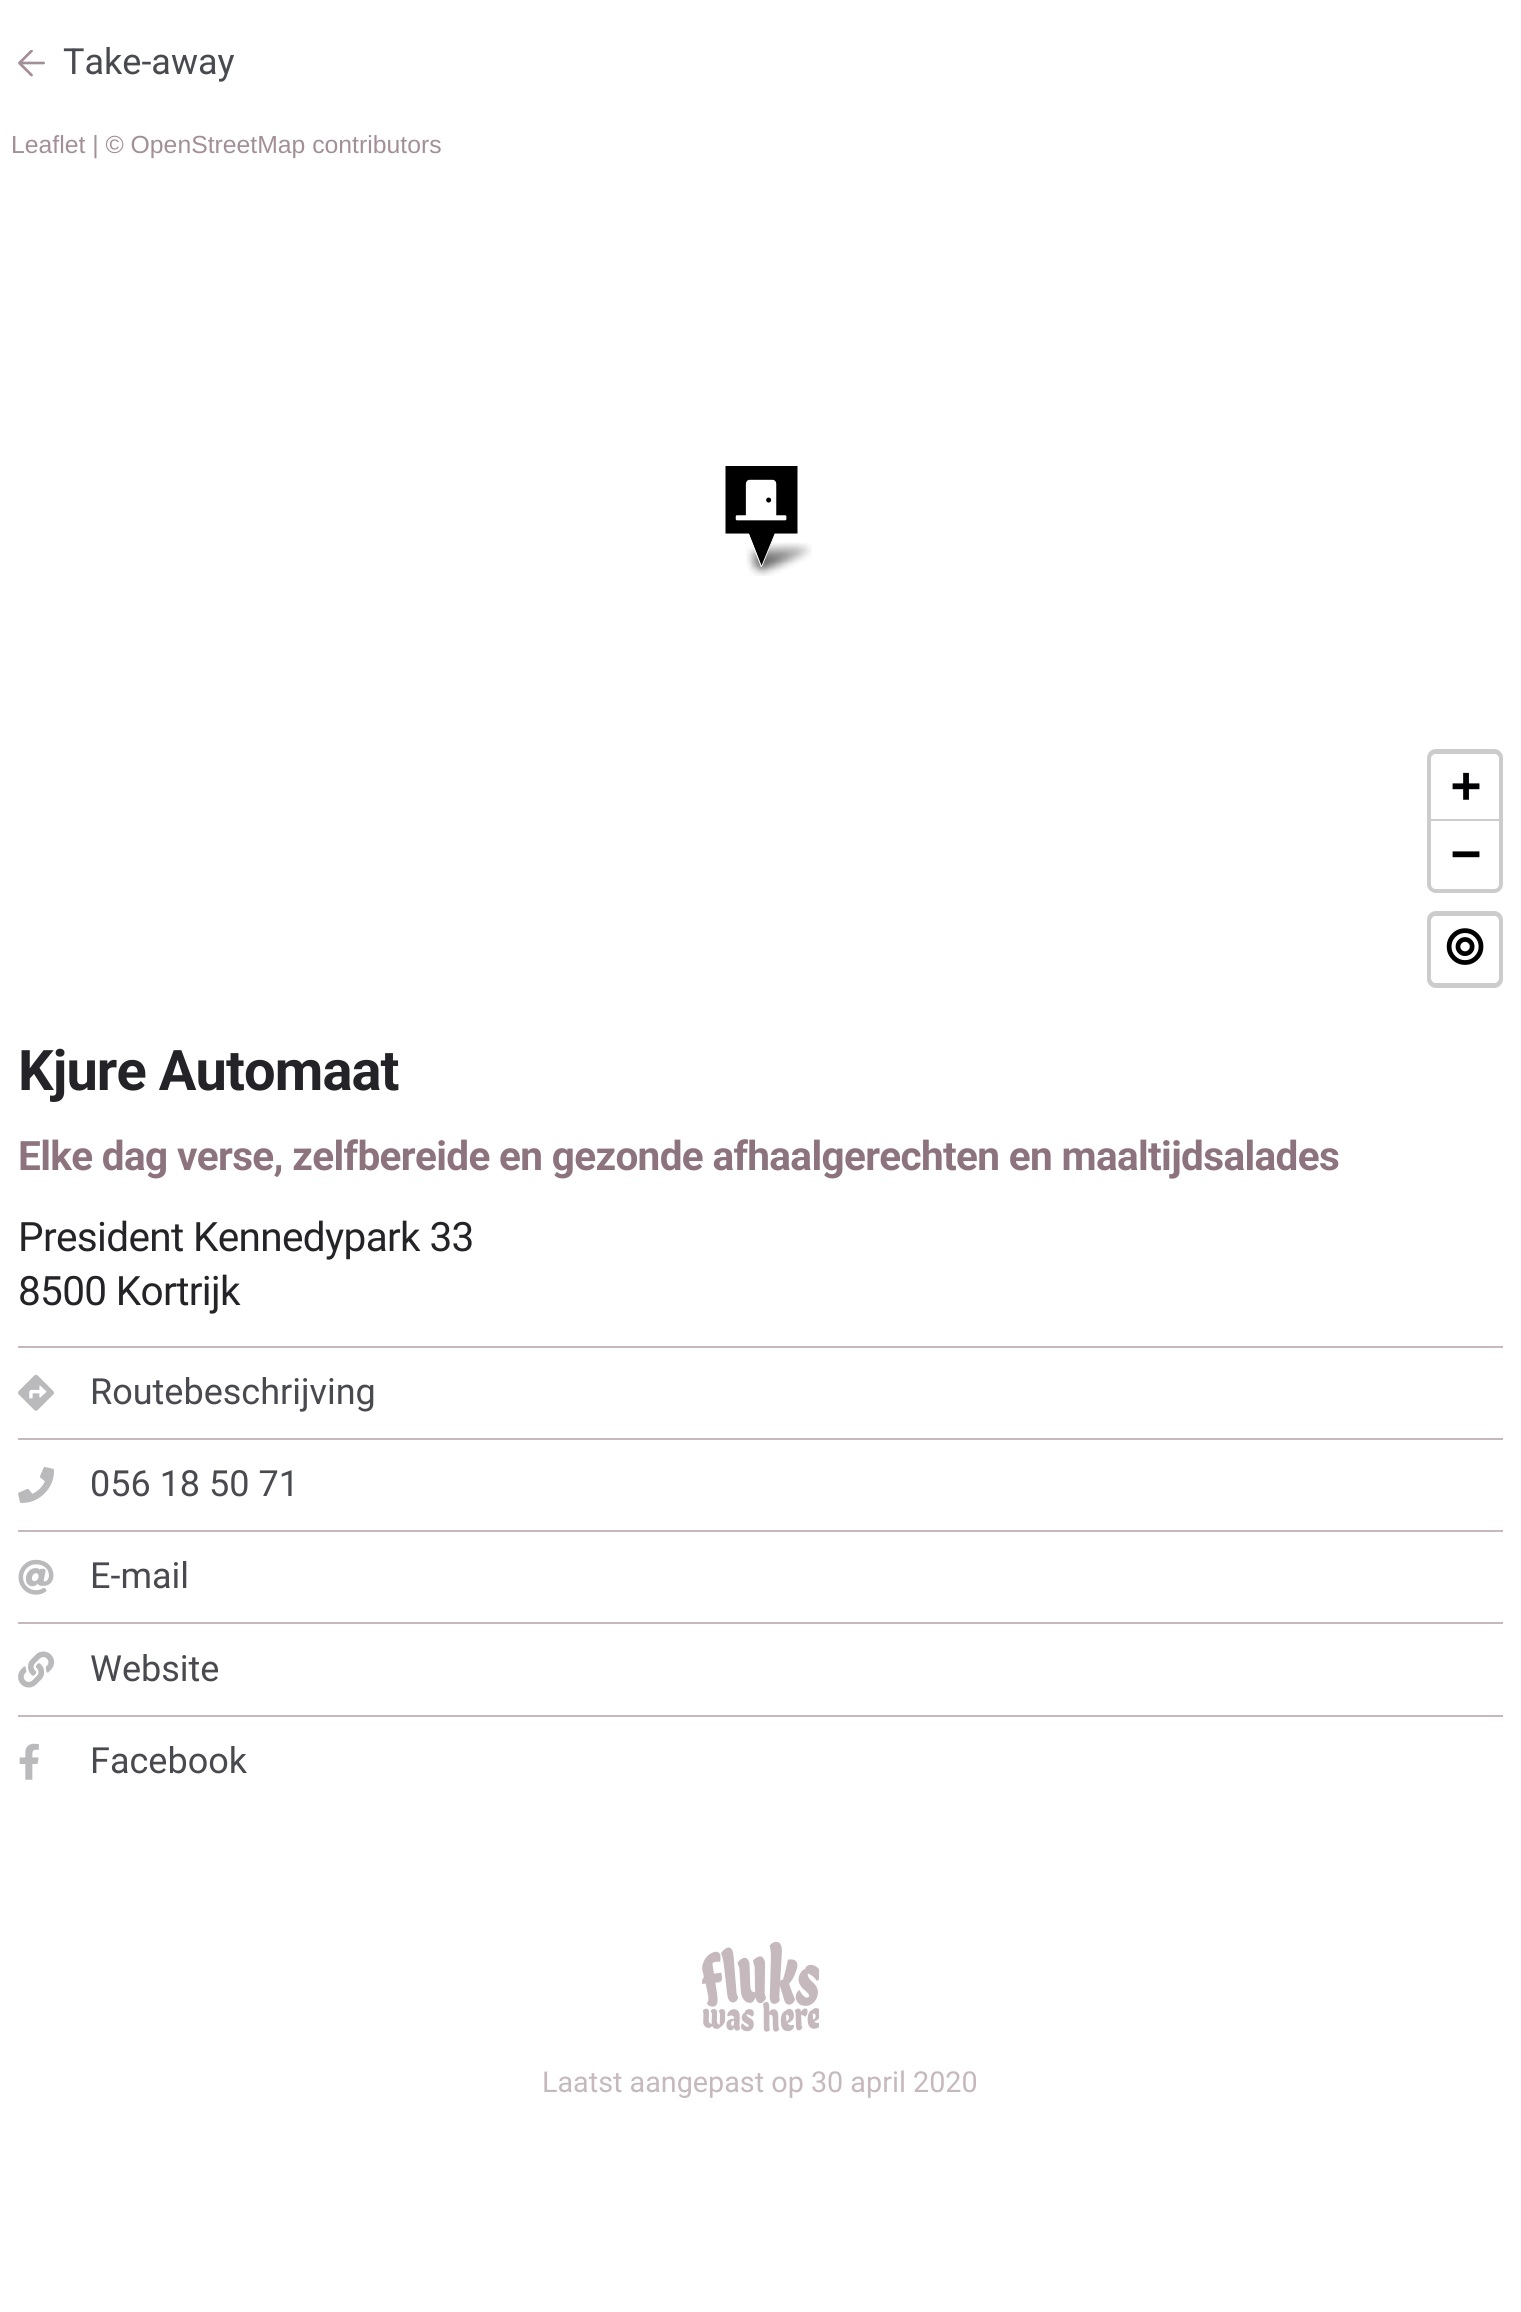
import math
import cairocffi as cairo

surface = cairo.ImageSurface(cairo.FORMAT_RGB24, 1521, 2312)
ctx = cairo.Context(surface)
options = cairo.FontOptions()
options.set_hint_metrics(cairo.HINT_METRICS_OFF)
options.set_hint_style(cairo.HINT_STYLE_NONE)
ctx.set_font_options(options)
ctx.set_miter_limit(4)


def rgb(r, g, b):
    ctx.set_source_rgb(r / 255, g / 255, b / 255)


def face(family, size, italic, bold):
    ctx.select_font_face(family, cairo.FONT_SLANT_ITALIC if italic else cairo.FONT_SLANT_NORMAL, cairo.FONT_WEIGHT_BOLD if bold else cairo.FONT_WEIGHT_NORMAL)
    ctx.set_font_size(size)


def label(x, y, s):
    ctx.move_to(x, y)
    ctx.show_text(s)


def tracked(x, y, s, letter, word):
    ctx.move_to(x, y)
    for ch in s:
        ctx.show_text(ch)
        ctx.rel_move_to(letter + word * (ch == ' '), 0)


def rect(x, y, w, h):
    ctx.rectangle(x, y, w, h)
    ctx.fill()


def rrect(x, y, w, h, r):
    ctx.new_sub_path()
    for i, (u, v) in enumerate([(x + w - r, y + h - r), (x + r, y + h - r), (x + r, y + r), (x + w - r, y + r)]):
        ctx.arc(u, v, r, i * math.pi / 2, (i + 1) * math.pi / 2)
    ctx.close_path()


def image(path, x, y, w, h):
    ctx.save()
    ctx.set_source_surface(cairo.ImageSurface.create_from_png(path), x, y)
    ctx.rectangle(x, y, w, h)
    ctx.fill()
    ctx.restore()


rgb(255, 255, 255)
ctx.paint()
image('image0.png', 18, 50, 27, 27)
face('Roboto', 36, 0, 0)
rgb(73, 73, 80)
label(63, 74, 'Take-away')
face('Liberation Sans', 24.75, 0, 0)
rgb(163, 143, 151)
label(11, 153, 'Leaflet | © OpenStreetMap contributors')
rrect(1429.5, 751.5, 71, 139, 6.5)
rgb(204, 204, 204)
ctx.set_line_width(5)
ctx.stroke()
rgb(255, 255, 255)
ctx.new_path()
ctx.move_to(1436, 754)
ctx.line_to(1494, 754)
ctx.curve_to(1497, 754, 1499, 756, 1499, 759)
ctx.line_to(1499, 821)
ctx.line_to(1431, 821)
ctx.line_to(1431, 759)
ctx.curve_to(1431, 756, 1433, 754, 1436, 754)
ctx.close_path()
ctx.fill()
rgb(204, 204, 204)
rect(1431, 819, 68, 2)
face('DejaVu Sans Mono', 50, 0, 1)
rgb(1, 1, 4)
label(1451, 802, '+')
rgb(255, 255, 255)
ctx.new_path()
ctx.move_to(1431, 821)
ctx.line_to(1499, 821)
ctx.line_to(1499, 884)
ctx.curve_to(1499, 887, 1497, 889, 1494, 889)
ctx.line_to(1436, 889)
ctx.curve_to(1433, 889, 1431, 887, 1431, 884)
ctx.close_path()
ctx.fill()
rgb(1, 1, 4)
label(1451, 870, '−')
rrect(1429.5, 913.5, 71, 72, 6.5)
rgb(204, 204, 204)
ctx.stroke()
rgb(255, 255, 255)
rrect(1431, 916, 68, 67, 5)
ctx.fill()
image('image1.png', 1446, 928, 38, 37)
image('image3.png', 746, 542, 66, 34)
rgb(0, 0, 0)
ctx.new_path()
ctx.move_to(725, 466)
ctx.line_to(725, 534)
ctx.line_to(749, 534)
ctx.line_to(762, 567)
ctx.line_to(775, 534)
ctx.line_to(798, 534)
ctx.line_to(798, 466)
ctx.close_path()
ctx.fill()
ctx.save()
ctx.rectangle(722, 466, 79, 101)
ctx.clip()
ctx.new_path()
ctx.move_to(725, 465.5)
ctx.line_to(725, 534)
ctx.line_to(748.5, 534)
ctx.line_to(761.5, 567)
ctx.line_to(775, 534)
ctx.line_to(798, 534)
ctx.line_to(798, 465.5)
ctx.close_path()
rgb(255, 255, 255)
ctx.set_line_width(1)
ctx.stroke()
ctx.restore()
image('image2.png', 735, 479, 52, 42)
face('Roboto', 56, 0, 1)
rgb(36, 36, 40)
tracked(18, 1090, 'Kjure Automaat', -0.9, 0)
face('Roboto', 40.5, 0, 1)
rgb(140, 115, 125)
tracked(18, 1170, 'Elke dag verse, zelfbereide en gezonde afhaalgerechten en maaltijdsalades', -0.65, 0)
face('Roboto', 40.5, 0, 0)
rgb(36, 36, 40)
tracked(18, 1251, 'President Kennedypark 33', -0.65, 0)
tracked(18, 1305, '8500 Kortrijk', -0.65, 0)
rgb(198, 185, 190)
rect(18, 1346, 1485, 2)
rect(18, 1438, 1485, 2)
image('image4.png', 18, 1374, 36, 37)
face('Roboto', 36, 0, 0)
rgb(73, 73, 80)
label(90, 1404, 'Routebeschrijving')
rgb(198, 185, 190)
rect(18, 1530, 1485, 2)
image('image5.png', 18, 1467, 36, 36)
rgb(73, 73, 80)
label(90, 1496, '056 18 50 71')
rgb(198, 185, 190)
rect(18, 1622, 1485, 2)
image('image6.png', 18, 1559, 36, 36)
rgb(73, 73, 80)
label(90, 1588, 'E-mail')
rgb(198, 185, 190)
rect(18, 1715, 1485, 2)
image('image7.png', 18, 1651, 36, 37)
rgb(73, 73, 80)
label(90, 1681, 'Website')
image('image8.png', 19, 1743, 20, 37)
label(90, 1773, 'Facebook')
image('image9.png', 702, 1942, 117, 90)
face('Roboto', 28.75, 0, 0)
rgb(198, 185, 190)
label(542, 2092, 'Laatst aangepast op 30 april 2020')
surface.write_to_png('render.png')
